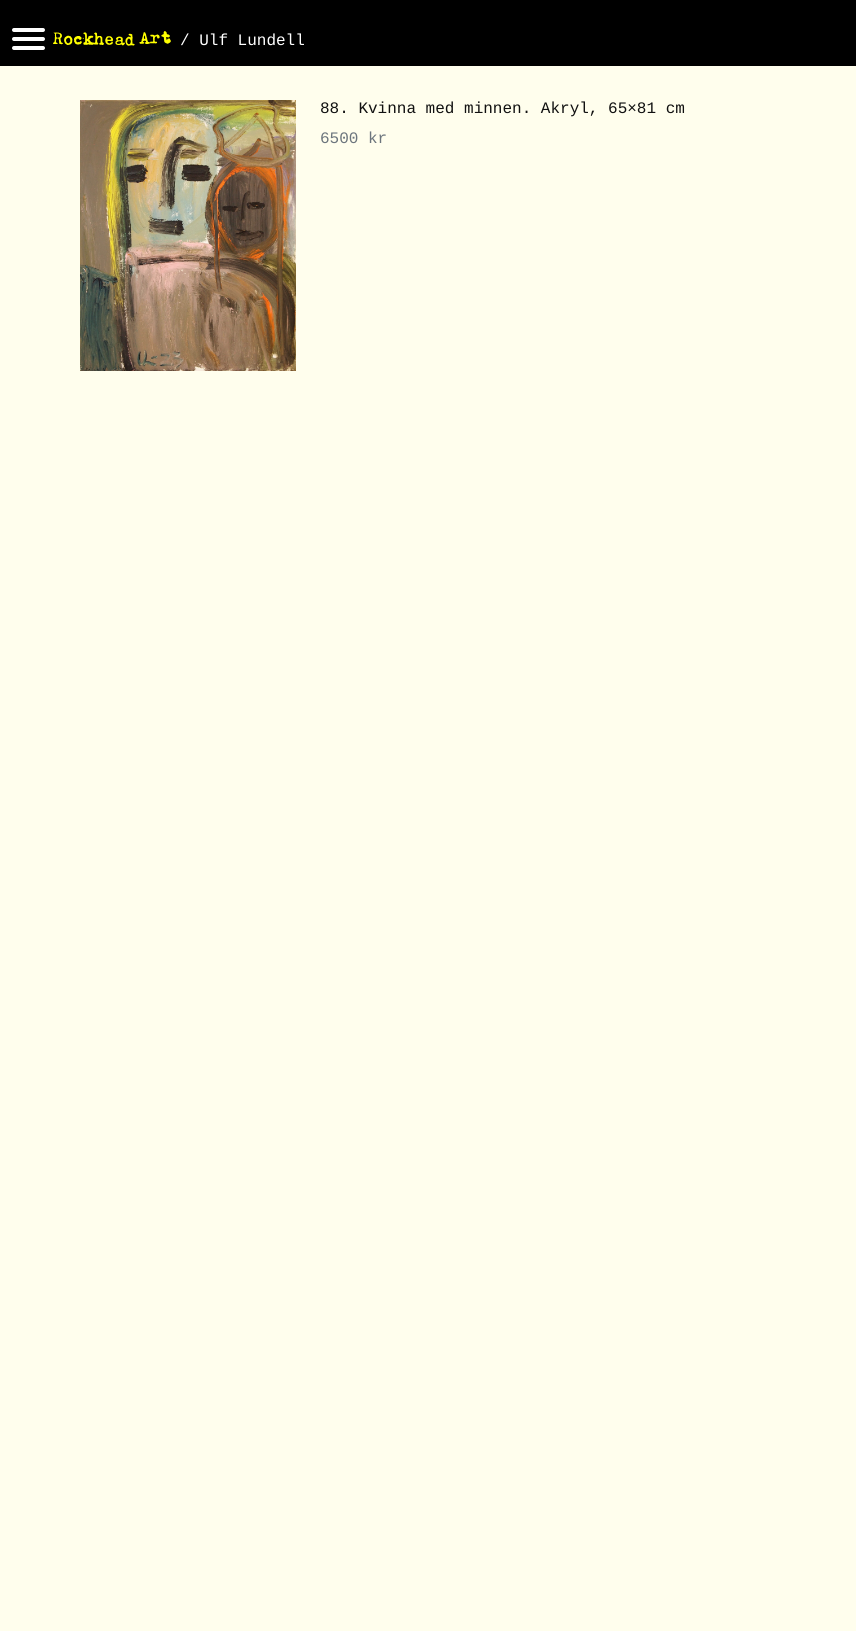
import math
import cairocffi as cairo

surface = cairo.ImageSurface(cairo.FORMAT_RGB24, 856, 1631)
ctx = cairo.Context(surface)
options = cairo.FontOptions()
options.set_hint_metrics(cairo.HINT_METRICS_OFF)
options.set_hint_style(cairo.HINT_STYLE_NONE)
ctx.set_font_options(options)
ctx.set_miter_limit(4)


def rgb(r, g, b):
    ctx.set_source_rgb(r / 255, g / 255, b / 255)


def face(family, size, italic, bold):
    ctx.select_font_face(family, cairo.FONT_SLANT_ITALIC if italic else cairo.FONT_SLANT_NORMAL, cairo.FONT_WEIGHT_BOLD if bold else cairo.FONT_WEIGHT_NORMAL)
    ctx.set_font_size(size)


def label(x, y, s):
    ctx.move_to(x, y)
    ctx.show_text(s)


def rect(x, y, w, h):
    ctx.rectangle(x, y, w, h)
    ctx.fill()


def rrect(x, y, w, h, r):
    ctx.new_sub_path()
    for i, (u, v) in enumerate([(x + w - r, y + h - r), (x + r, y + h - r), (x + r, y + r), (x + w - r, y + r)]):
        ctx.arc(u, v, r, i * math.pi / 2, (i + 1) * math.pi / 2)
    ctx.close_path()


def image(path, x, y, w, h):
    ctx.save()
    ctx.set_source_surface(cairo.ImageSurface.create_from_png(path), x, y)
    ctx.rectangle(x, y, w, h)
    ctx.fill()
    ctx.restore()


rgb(255, 254, 237)
ctx.paint()
rgb(0, 0, 0)
rect(0, 0, 856, 66)
rgb(255, 255, 255)
rrect(12, 28, 33, 4, 2)
ctx.fill()
rrect(12, 37, 33, 4, 2)
ctx.fill()
rrect(12, 46, 33, 4, 2)
ctx.fill()
image('image0.png', 53, 31, 118, 15)
face('Liberation Mono', 16, 0, 0)
label(180, 45, '/ Ulf Lundell')
image('image1.png', 80, 100, 216, 271)
rgb(17, 17, 17)
label(320, 113, '88. Kvinna med minnen. Akryl, 65×81 cm')
rgb(108, 117, 125)
label(320, 143, '6500 kr')
surface.write_to_png('render.png')
